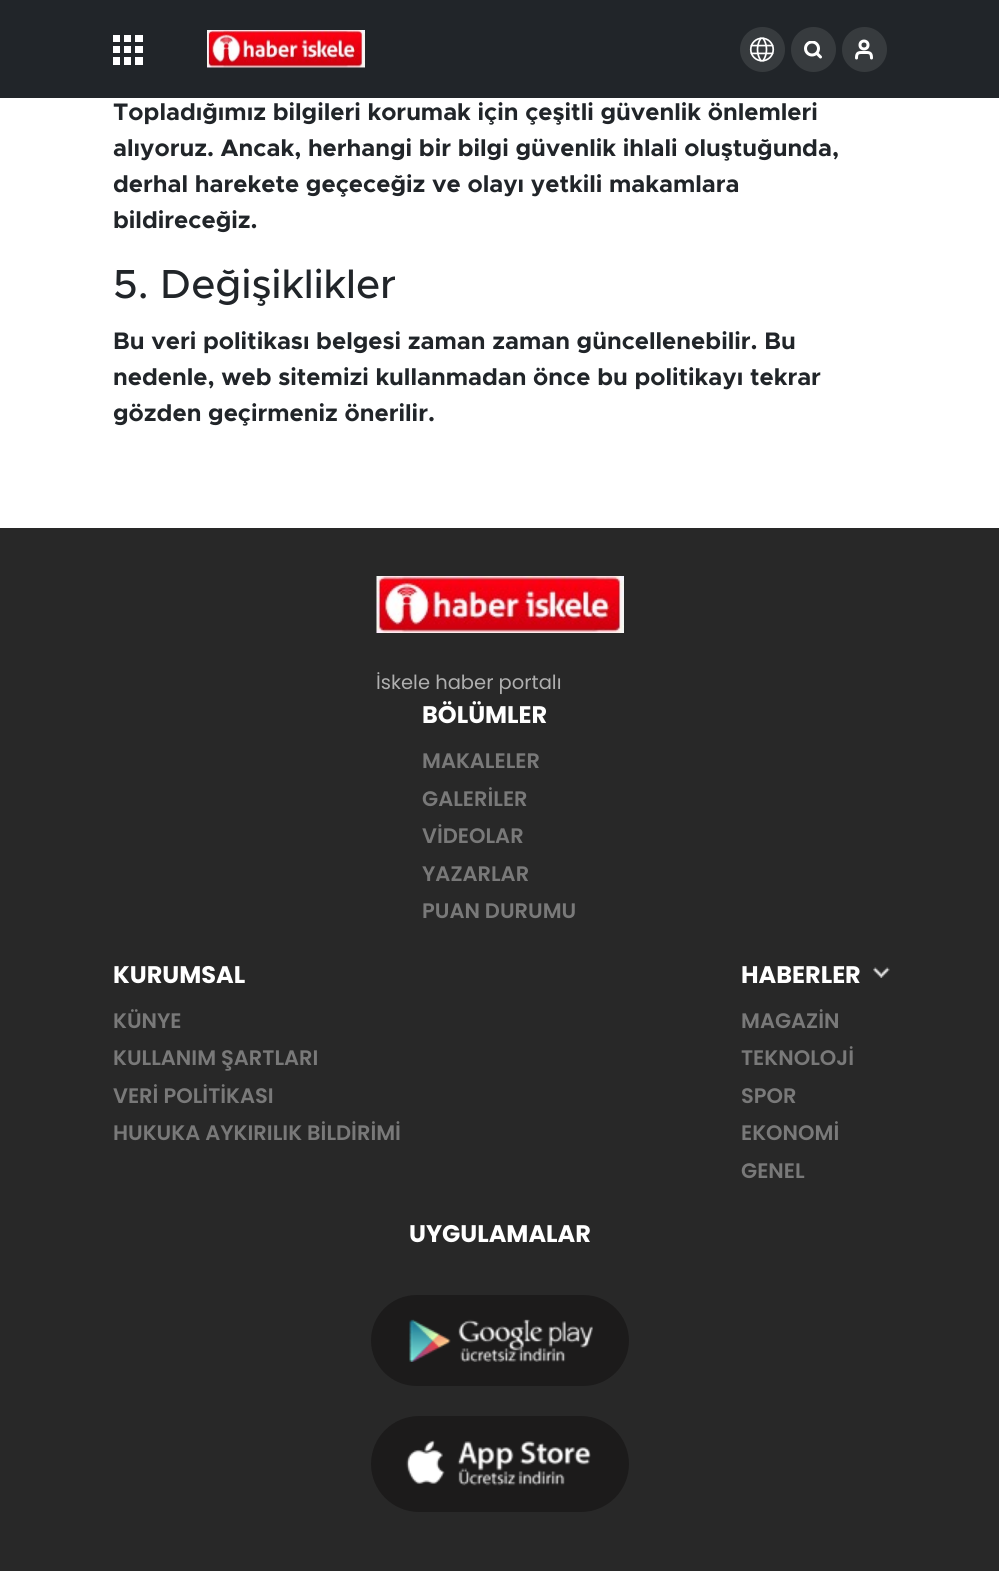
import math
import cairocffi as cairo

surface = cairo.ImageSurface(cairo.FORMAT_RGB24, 999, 1571)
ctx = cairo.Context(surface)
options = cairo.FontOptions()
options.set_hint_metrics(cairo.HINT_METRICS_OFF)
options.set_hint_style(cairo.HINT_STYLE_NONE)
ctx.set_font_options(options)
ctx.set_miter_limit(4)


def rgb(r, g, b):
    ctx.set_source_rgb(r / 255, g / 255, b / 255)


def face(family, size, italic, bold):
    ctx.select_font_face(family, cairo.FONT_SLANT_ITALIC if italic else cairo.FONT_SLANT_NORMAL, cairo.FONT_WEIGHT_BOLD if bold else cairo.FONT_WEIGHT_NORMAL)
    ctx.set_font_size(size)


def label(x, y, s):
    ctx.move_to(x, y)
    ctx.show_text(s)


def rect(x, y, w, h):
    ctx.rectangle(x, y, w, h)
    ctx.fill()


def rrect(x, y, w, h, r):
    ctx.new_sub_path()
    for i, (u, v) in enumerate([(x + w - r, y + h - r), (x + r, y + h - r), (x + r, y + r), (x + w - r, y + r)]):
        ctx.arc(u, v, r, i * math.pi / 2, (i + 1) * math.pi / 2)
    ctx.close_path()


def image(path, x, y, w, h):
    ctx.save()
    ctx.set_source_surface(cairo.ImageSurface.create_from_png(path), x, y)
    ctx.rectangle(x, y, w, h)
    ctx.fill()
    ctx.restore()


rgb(255, 255, 255)
ctx.paint()
rgb(33, 37, 41)
rect(0, 0, 999, 98)
image('image0.png', 113, 35, 30, 30)
image('image1.png', 207, 30, 158, 38)
rgb(55, 59, 62)
ctx.arc(762.5, 49.5, 22.5, 0, 2 * math.pi)
ctx.fill()
image('image2.png', 749, 37, 26, 25)
ctx.arc(813.5, 49.5, 22.5, 0, 2 * math.pi)
ctx.fill()
ctx.save()
ctx.rectangle(804, 41, 18, 18)
ctx.clip()
ctx.arc(812, 48.5, 6.5, 0, 2 * math.pi)
rgb(255, 255, 255)
ctx.set_line_width(3)
ctx.stroke()
ctx.restore()
ctx.new_path()
ctx.move_to(820.5, 57)
ctx.line_to(817, 53.5)
rgb(255, 255, 255)
ctx.set_line_width(3)
ctx.set_line_cap(cairo.LINE_CAP_ROUND)
ctx.set_line_join(cairo.LINE_JOIN_ROUND)
ctx.stroke()
rgb(55, 59, 62)
ctx.arc(864.5, 49.5, 22.5, 0, 2 * math.pi)
ctx.fill()
ctx.new_path()
ctx.move_to(871.5, 58)
ctx.curve_to(871.5, 52, 869, 52.5, 864, 52.5)
ctx.curve_to(859, 52.5, 856.5, 52, 856.5, 58)
rgb(255, 255, 255)
ctx.stroke()
ctx.arc(864, 45, 4, 0, 2 * math.pi)
ctx.set_line_cap(cairo.LINE_CAP_BUTT)
ctx.set_line_join(cairo.LINE_JOIN_MITER)
ctx.stroke()
face('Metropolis', 24, 0, 1)
rgb(33, 37, 41)
label(113, 120, 'Topladığımız bilgileri korumak için çeşitli güvenlik önlemleri')
label(113, 156, 'alıyoruz. Ancak, herhangi bir bilgi güvenlik ihlali oluştuğunda,')
label(113, 192, 'derhal harekete geçeceğiz ve olayı yetkili makamlara')
label(113, 228, 'bildireceğiz.')
face('Metropolis Medium', 40.75, 0, 0)
label(113, 298, '5. Değişiklikler')
face('Metropolis', 24, 0, 1)
label(113, 349, 'Bu veri politikası belgesi zaman zaman güncellenebilir. Bu')
label(113, 385, 'nedenle, web sitemizi kullanmadan önce bu politikayı tekrar')
label(113, 421, 'gözden geçirmeniz önerilir.')
rgb(40, 40, 40)
rect(0, 528, 999, 1043)
image('image3.png', 376, 576, 248, 57)
face('Poppins', 19.5, 0, 0)
rgb(175, 175, 175)
label(376, 689, 'İskele haber portalı')
face('Poppins', 24, 0, 1)
rgb(255, 255, 255)
label(422, 723, 'BÖLÜMLER')
face('Poppins SemiBold', 21, 0, 0)
rgb(121, 121, 121)
label(422, 768, 'MAKALELER')
label(422, 806, 'GALERİLER')
label(422, 843, 'VİDEOLAR')
label(422, 881, 'YAZARLAR')
label(422, 918, 'PUAN DURUMU')
face('Poppins', 24, 0, 1)
rgb(255, 255, 255)
label(113, 983, 'KURUMSAL')
face('Poppins SemiBold', 21, 0, 0)
rgb(121, 121, 121)
label(113, 1028, 'KÜNYE')
label(113, 1065, 'KULLANIM ŞARTLARI')
label(113, 1103, 'VERİ POLİTİKASI')
label(113, 1140, 'HUKUKA AYKIRILIK BİLDİRİMİ')
face('Poppins', 24, 0, 1)
rgb(255, 255, 255)
label(741, 983, 'HABERLER')
image('image4.png', 873, 967, 17, 11)
face('Poppins SemiBold', 21, 0, 0)
rgb(121, 121, 121)
label(741, 1028, 'MAGAZİN')
label(741, 1065, 'TEKNOLOJİ')
label(741, 1103, 'SPOR')
label(741, 1140, 'EKONOMİ')
label(741, 1178, 'GENEL')
face('Poppins', 24, 0, 1)
rgb(255, 255, 255)
label(409, 1242, 'UYGULAMALAR')
rgb(28, 27, 27)
rrect(371, 1295, 258, 91, 45.5)
ctx.fill()
image('image5.png', 409, 1319, 184, 43)
rrect(371, 1416, 258, 96, 48)
ctx.fill()
image('image6.png', 406, 1440, 185, 46)
surface.write_to_png('render.png')
